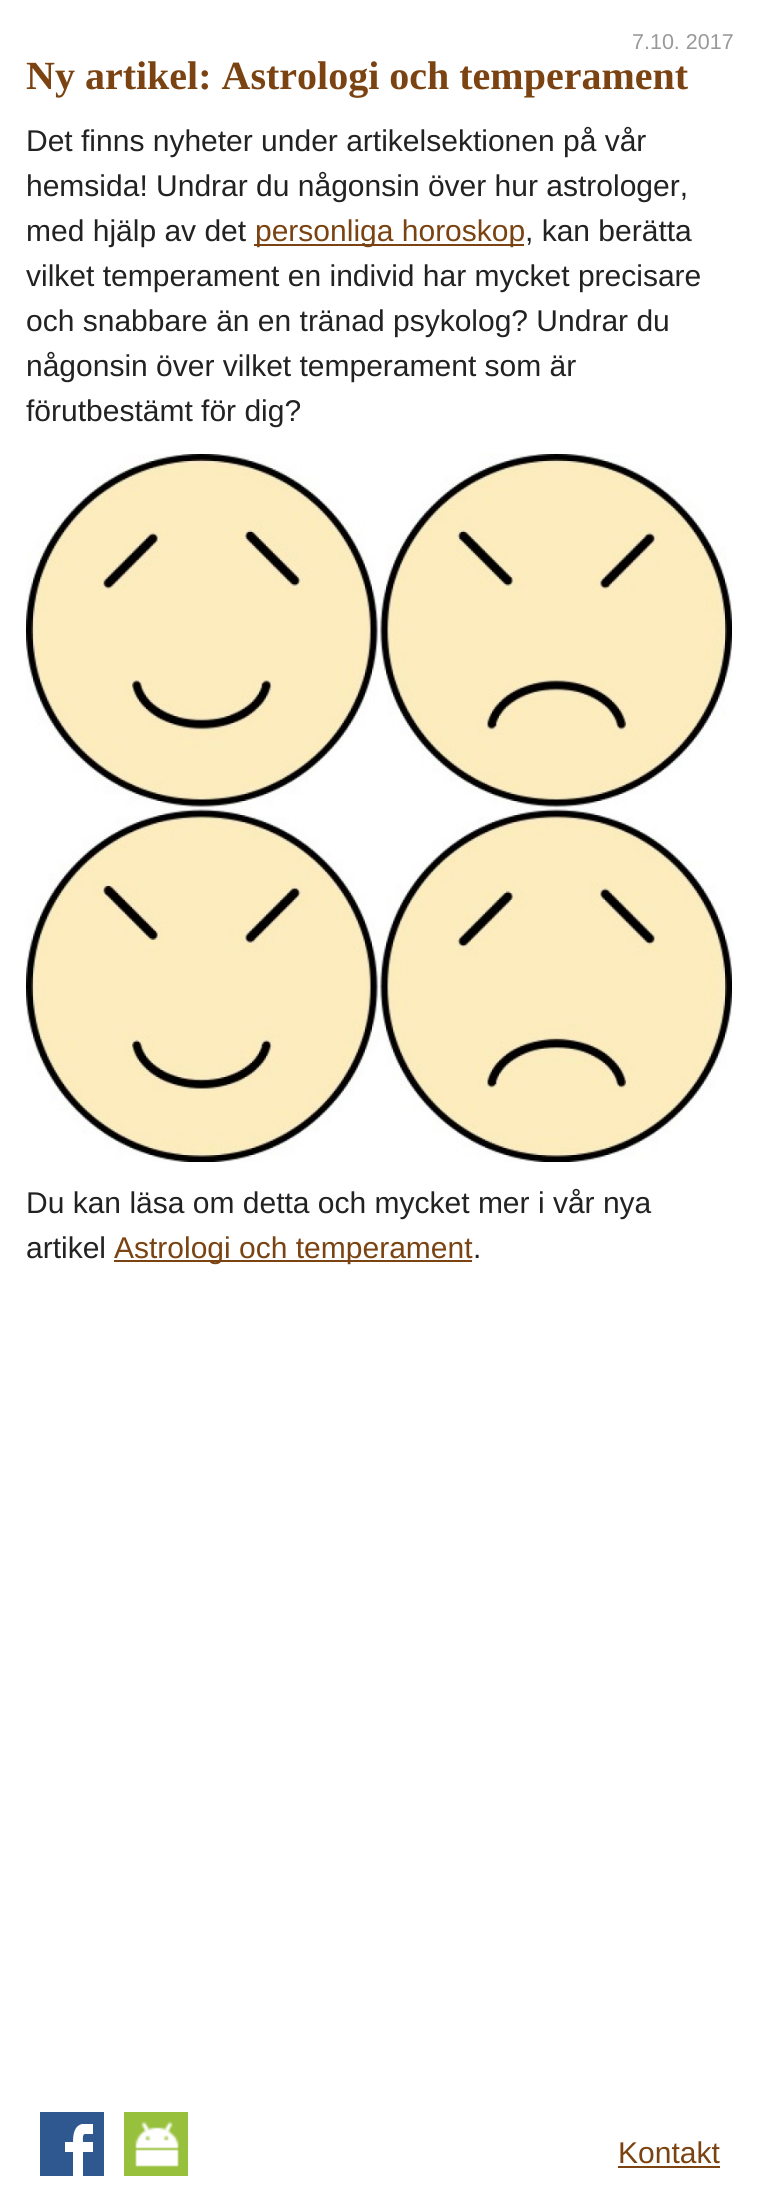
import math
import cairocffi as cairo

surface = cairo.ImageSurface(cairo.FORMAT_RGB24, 759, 2196)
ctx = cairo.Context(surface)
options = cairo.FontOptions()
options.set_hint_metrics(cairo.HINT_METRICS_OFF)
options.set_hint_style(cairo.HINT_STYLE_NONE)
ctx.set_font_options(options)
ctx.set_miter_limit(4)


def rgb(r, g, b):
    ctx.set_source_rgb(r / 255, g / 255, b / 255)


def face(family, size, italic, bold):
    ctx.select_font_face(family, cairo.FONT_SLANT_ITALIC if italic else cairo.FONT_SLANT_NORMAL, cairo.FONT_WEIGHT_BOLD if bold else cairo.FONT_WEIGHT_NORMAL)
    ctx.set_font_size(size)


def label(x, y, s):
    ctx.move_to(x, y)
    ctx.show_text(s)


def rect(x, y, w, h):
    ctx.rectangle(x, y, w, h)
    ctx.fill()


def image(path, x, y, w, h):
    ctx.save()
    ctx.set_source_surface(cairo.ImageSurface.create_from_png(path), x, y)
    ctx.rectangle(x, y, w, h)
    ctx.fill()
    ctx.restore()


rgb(255, 255, 255)
ctx.paint()
face('Liberation Sans', 21.5, 0, 0)
rgb(153, 153, 153)
label(632, 49, '7.10. 2017')
face('Liberation Serif', 40, 0, 1)
rgb(122, 67, 17)
label(26, 89, 'Ny artikel: Astrologi och temperament')
face('Liberation Sans', 30, 0, 0)
rgb(34, 34, 34)
label(26, 151, 'Det finns nyheter under artikelsektionen på vår')
label(26, 196, 'hemsida! Undrar du någonsin över hur astrologer,')
label(26, 241, 'med hjälp av det')
rgb(122, 67, 17)
rect(254, 244, 270, 2)
label(255, 241, 'personliga horoskop')
rgb(34, 34, 34)
label(525, 241, ', kan berätta')
label(26, 286, 'vilket temperament en individ har mycket precisare')
label(26, 331, 'och snabbare än en tränad psykolog? Undrar du')
label(26, 376, 'någonsin över vilket temperament som är')
label(26, 421, 'förutbestämt för dig?')
image('image0.png', 26, 454, 706, 708)
label(26, 1213, 'Du kan läsa om detta och mycket mer i vår nya')
label(26, 1258, 'artikel')
rgb(122, 67, 17)
rect(114, 1260, 358, 2)
label(114, 1258, 'Astrologi och temperament')
rgb(34, 34, 34)
label(473, 1258, '.')
rgb(48, 88, 144)
rect(40, 2112, 64, 64)
rgb(255, 255, 255)
ctx.new_path()
ctx.move_to(85, 2134)
ctx.line_to(93, 2134)
ctx.line_to(93, 2124)
ctx.line_to(82, 2124)
ctx.curve_to(74, 2126, 73, 2135, 73, 2142)
ctx.line_to(65, 2142)
ctx.line_to(65, 2152)
ctx.line_to(73, 2152)
ctx.line_to(73, 2176)
ctx.line_to(83, 2176)
ctx.line_to(83, 2152)
ctx.line_to(93, 2152)
ctx.line_to(93, 2142)
ctx.line_to(83, 2142)
ctx.curve_to(83, 2141, 82, 2134, 85, 2134)
ctx.close_path()
ctx.fill()
rgb(151, 192, 61)
rect(124, 2112, 64, 64)
image('image1.png', 135, 2121, 44, 46)
rgb(122, 67, 17)
label(618, 2163, 'Kontakt')
rect(618, 2166, 102, 2)
surface.write_to_png('render.png')
